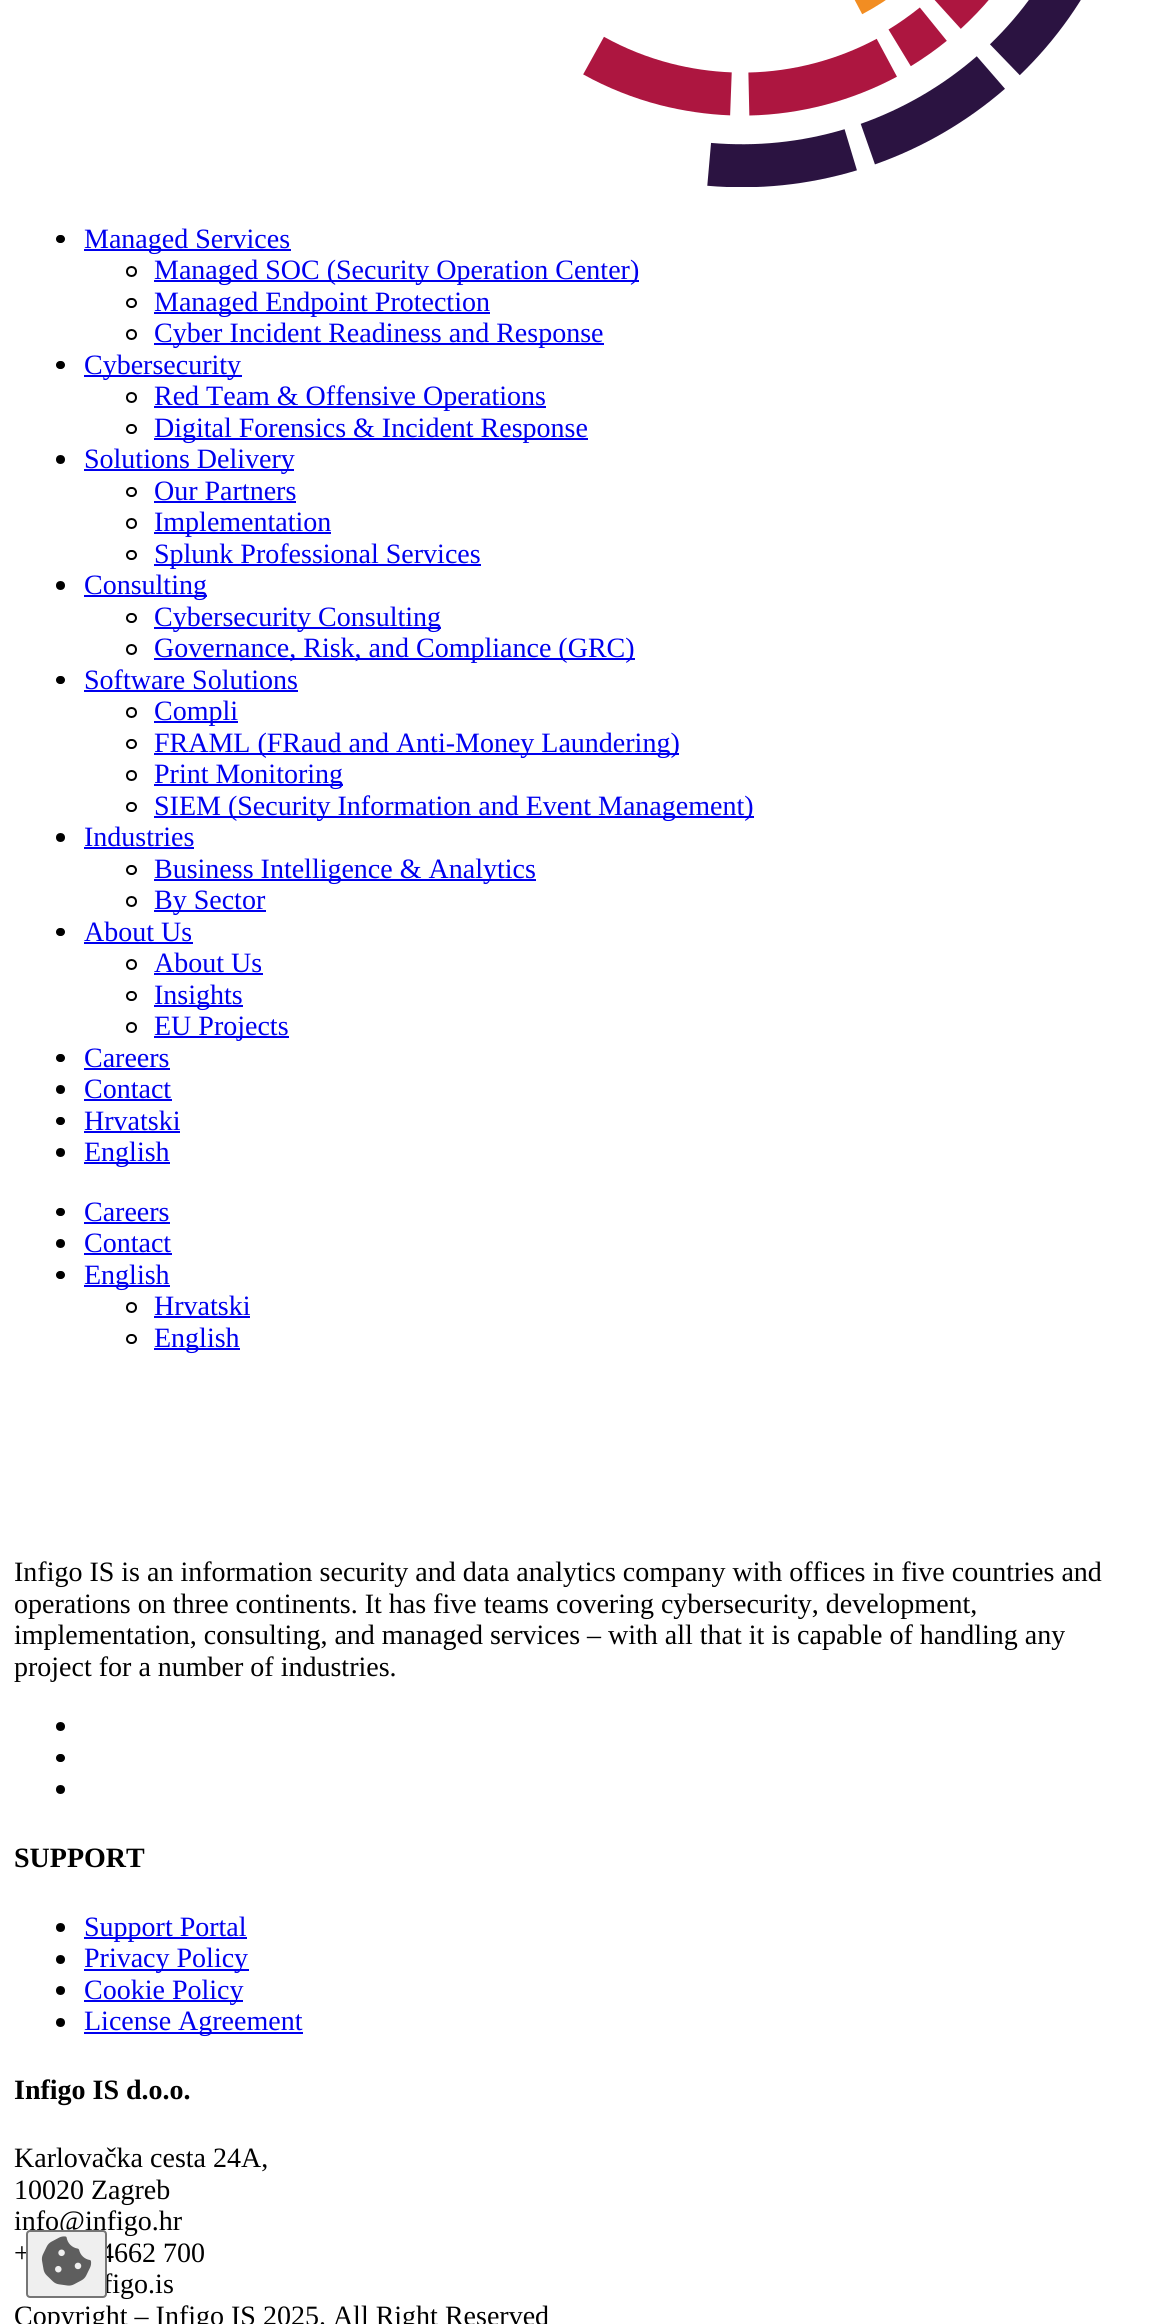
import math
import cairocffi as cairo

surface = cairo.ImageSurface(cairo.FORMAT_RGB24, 1159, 2324)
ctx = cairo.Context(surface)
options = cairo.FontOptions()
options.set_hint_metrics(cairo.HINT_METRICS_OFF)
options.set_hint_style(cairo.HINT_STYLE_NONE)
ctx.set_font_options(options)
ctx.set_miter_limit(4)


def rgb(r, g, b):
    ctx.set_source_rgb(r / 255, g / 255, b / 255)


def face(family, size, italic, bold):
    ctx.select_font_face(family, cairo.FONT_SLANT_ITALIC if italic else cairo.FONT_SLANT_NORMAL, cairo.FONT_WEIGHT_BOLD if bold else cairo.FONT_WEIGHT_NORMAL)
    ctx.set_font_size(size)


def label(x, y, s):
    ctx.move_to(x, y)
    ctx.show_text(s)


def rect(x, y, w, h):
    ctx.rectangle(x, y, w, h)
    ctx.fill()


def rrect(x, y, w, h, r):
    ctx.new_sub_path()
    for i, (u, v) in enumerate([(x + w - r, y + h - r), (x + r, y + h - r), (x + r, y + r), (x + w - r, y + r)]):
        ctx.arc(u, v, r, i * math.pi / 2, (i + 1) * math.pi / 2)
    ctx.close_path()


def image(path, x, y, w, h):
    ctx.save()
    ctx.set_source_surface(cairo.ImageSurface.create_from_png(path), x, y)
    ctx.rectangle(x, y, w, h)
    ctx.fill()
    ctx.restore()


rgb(255, 255, 255)
ctx.paint()
image('image0.png', 583, 0, 498, 187)
rgb(0, 0, 0)
rrect(56, 235, 9, 8, 4)
ctx.fill()
rgb(0, 0, 238)
rect(84, 249, 207, 2)
face('Liberation Serif', 28, 0, 0)
label(84, 248, 'Managed Services')
ctx.new_path()
ctx.arc(131.5, 271.5, 4.5, 0, 2 * math.pi)
rgb(0, 0, 0)
ctx.stroke()
rgb(0, 0, 238)
rect(154, 280, 485, 2)
label(154, 279, 'Managed SOC (Security Operation Center)')
rrect(127, 299, 9, 8, 4)
rgb(0, 0, 0)
ctx.stroke()
rgb(0, 0, 238)
rect(154, 312, 336, 2)
label(154, 311, 'Managed Endpoint Protection')
ctx.new_path()
ctx.arc(131.5, 334.5, 4.5, 0, 2 * math.pi)
rgb(0, 0, 0)
ctx.stroke()
rgb(0, 0, 238)
rect(154, 343, 450, 2)
label(154, 342, 'Cyber Incident Readiness and Response')
rgb(0, 0, 0)
rrect(56, 361, 9, 8, 4)
ctx.fill()
rgb(0, 0, 238)
rect(84, 375, 158, 2)
label(84, 374, 'Cybersecurity')
ctx.new_path()
ctx.arc(131.5, 397.5, 4.5, 0, 2 * math.pi)
rgb(0, 0, 0)
ctx.stroke()
rgb(0, 0, 238)
rect(154, 406, 392, 2)
label(154, 405, 'Red Team & Offensive Operations')
rrect(127, 425, 9, 8, 4)
rgb(0, 0, 0)
ctx.stroke()
rgb(0, 0, 238)
rect(154, 438, 434, 2)
label(154, 437, 'Digital Forensics & Incident Response')
rgb(0, 0, 0)
ctx.new_path()
ctx.arc(60.5, 459.5, 4.5, 0, 2 * math.pi)
ctx.fill()
rgb(0, 0, 238)
rect(84, 469, 210, 2)
label(84, 468, 'Solutions Delivery')
rrect(127, 488, 9, 8, 4)
rgb(0, 0, 0)
ctx.stroke()
rgb(0, 0, 238)
label(154, 500, 'Our Partners')
rect(154, 501, 142, 2)
ctx.new_path()
ctx.arc(131.5, 523.5, 4.5, 0, 2 * math.pi)
rgb(0, 0, 0)
ctx.stroke()
rgb(0, 0, 238)
rect(154, 532, 177, 2)
label(154, 531, 'Implementation')
rrect(127, 551, 9, 8, 4)
rgb(0, 0, 0)
ctx.stroke()
rgb(0, 0, 238)
rect(154, 564, 327, 2)
label(154, 563, 'Splunk Professional Services')
rgb(0, 0, 0)
ctx.new_path()
ctx.arc(60.5, 585.5, 4.5, 0, 2 * math.pi)
ctx.fill()
rgb(0, 0, 238)
rect(84, 595, 123, 2)
label(84, 594, 'Consulting')
rrect(127, 614, 9, 8, 4)
rgb(0, 0, 0)
ctx.stroke()
rgb(0, 0, 238)
rect(154, 627, 287, 2)
label(154, 626, 'Cybersecurity Consulting')
ctx.new_path()
ctx.arc(131.5, 649.5, 4.5, 0, 2 * math.pi)
rgb(0, 0, 0)
ctx.stroke()
rgb(0, 0, 238)
rect(154, 658, 481, 2)
label(154, 657, 'Governance, Risk, and Compliance (GRC)')
rgb(0, 0, 0)
rrect(56, 676, 9, 8, 4)
ctx.fill()
rgb(0, 0, 238)
label(84, 689, 'Software Solutions')
rect(84, 690, 214, 2)
ctx.new_path()
ctx.arc(131.5, 712.5, 4.5, 0, 2 * math.pi)
rgb(0, 0, 0)
ctx.stroke()
rgb(0, 0, 238)
rect(154, 721, 84, 2)
label(154, 720, 'Compli')
rrect(127, 740, 9, 8, 4)
rgb(0, 0, 0)
ctx.stroke()
rgb(0, 0, 238)
rect(154, 753, 525, 2)
label(154, 752, 'FRAML (FRaud and Anti-Money Laundering)')
ctx.new_path()
ctx.arc(131.5, 775.5, 4.5, 0, 2 * math.pi)
rgb(0, 0, 0)
ctx.stroke()
rgb(0, 0, 238)
rect(154, 784, 189, 2)
label(154, 783, 'Print Monitoring')
rrect(127, 803, 9, 8, 4)
rgb(0, 0, 0)
ctx.stroke()
rgb(0, 0, 238)
rect(154, 816, 600, 2)
label(154, 815, 'SIEM (Security Information and Event Management)')
rgb(0, 0, 0)
ctx.new_path()
ctx.arc(60.5, 837.5, 4.5, 0, 2 * math.pi)
ctx.fill()
rgb(0, 0, 238)
label(84, 846, 'Industries')
rect(84, 847, 110, 2)
rrect(127, 866, 9, 8, 4)
rgb(0, 0, 0)
ctx.stroke()
rgb(0, 0, 238)
rect(154, 879, 382, 2)
label(154, 878, 'Business Intelligence & Analytics')
ctx.new_path()
ctx.arc(131.5, 901.5, 4.5, 0, 2 * math.pi)
rgb(0, 0, 0)
ctx.stroke()
rgb(0, 0, 238)
rect(154, 910, 112, 2)
label(154, 909, 'By Sector')
rgb(0, 0, 0)
rrect(56, 928, 9, 8, 4)
ctx.fill()
rgb(0, 0, 238)
label(84, 941, 'About Us')
rect(84, 942, 109, 2)
ctx.new_path()
ctx.arc(131.5, 964.5, 4.5, 0, 2 * math.pi)
rgb(0, 0, 0)
ctx.stroke()
rgb(0, 0, 238)
label(154, 972, 'About Us')
rect(154, 973, 109, 2)
rrect(127, 992, 9, 8, 4)
rgb(0, 0, 0)
ctx.stroke()
rgb(0, 0, 238)
rect(154, 1005, 89, 2)
label(154, 1004, 'Insights')
ctx.new_path()
ctx.arc(131.5, 1027.5, 4.5, 0, 2 * math.pi)
rgb(0, 0, 0)
ctx.stroke()
rgb(0, 0, 238)
rect(154, 1036, 135, 2)
label(154, 1035, 'EU Projects')
rgb(0, 0, 0)
rrect(56, 1054, 9, 8, 4)
ctx.fill()
rgb(0, 0, 238)
label(84, 1067, 'Careers')
rect(84, 1068, 86, 2)
rgb(0, 0, 0)
ctx.new_path()
ctx.arc(60.5, 1089.5, 4.5, 0, 2 * math.pi)
ctx.fill()
rgb(0, 0, 238)
label(84, 1098, 'Contact')
rect(84, 1099, 88, 2)
rgb(0, 0, 0)
rrect(56, 1117, 9, 8, 4)
ctx.fill()
rgb(0, 0, 238)
label(84, 1130, 'Hrvatski')
rect(84, 1131, 96, 2)
rgb(0, 0, 0)
ctx.new_path()
ctx.arc(60.5, 1152.5, 4.5, 0, 2 * math.pi)
ctx.fill()
rgb(0, 0, 238)
rect(84, 1162, 86, 2)
label(84, 1161, 'English')
rgb(0, 0, 0)
rrect(56, 1208, 9, 8, 4)
ctx.fill()
rgb(0, 0, 238)
label(84, 1221, 'Careers')
rect(84, 1222, 86, 2)
rgb(0, 0, 0)
ctx.new_path()
ctx.arc(60.5, 1243.5, 4.5, 0, 2 * math.pi)
ctx.fill()
rgb(0, 0, 238)
label(84, 1252, 'Contact')
rect(84, 1253, 88, 2)
rgb(0, 0, 0)
rrect(56, 1271, 9, 8, 4)
ctx.fill()
rgb(0, 0, 238)
rect(84, 1285, 86, 2)
label(84, 1284, 'English')
ctx.new_path()
ctx.arc(131.5, 1307.5, 4.5, 0, 2 * math.pi)
rgb(0, 0, 0)
ctx.stroke()
rgb(0, 0, 238)
label(154, 1315, 'Hrvatski')
rect(154, 1316, 96, 2)
rrect(127, 1335, 9, 8, 4)
rgb(0, 0, 0)
ctx.stroke()
rgb(0, 0, 238)
rect(154, 1348, 86, 2)
label(154, 1347, 'English')
rgb(0, 0, 0)
label(14, 1581, 'Infigo IS is an information security and data analytics company with offices in five countries and')
label(14, 1613, 'operations on three continents. It has five teams covering cybersecurity, development,')
label(14, 1644, 'implementation, consulting, and managed services – with all that it is capable of handling any')
label(14, 1676, 'project for a number of industries.')
ctx.new_path()
ctx.arc(60.5, 1726.5, 4.5, 0, 2 * math.pi)
ctx.fill()
rrect(56, 1754, 9, 8, 4)
ctx.fill()
ctx.arc(60.5, 1789.5, 4.5, 0, 2 * math.pi)
ctx.fill()
face('Liberation Serif', 28, 0, 1)
label(14, 1867, 'SUPPORT')
ctx.new_path()
ctx.arc(60.5, 1927.5, 4.5, 0, 2 * math.pi)
ctx.fill()
rgb(0, 0, 238)
rect(84, 1937, 163, 2)
face('Liberation Serif', 28, 0, 0)
label(84, 1936, 'Support Portal')
rgb(0, 0, 0)
ctx.new_path()
ctx.arc(60.5, 1959.5, 4.5, 0, 2 * math.pi)
ctx.fill()
rgb(0, 0, 238)
rect(84, 1969, 165, 2)
label(84, 1967, 'Privacy Policy')
rgb(0, 0, 0)
ctx.new_path()
ctx.arc(60.5, 1990.5, 4.5, 0, 2 * math.pi)
ctx.fill()
rgb(0, 0, 238)
rect(84, 2000, 159, 2)
label(84, 1999, 'Cookie Policy')
rgb(0, 0, 0)
ctx.new_path()
ctx.arc(60.5, 2022.5, 4.5, 0, 2 * math.pi)
ctx.fill()
rgb(0, 0, 238)
rect(84, 2032, 219, 2)
label(84, 2030, 'License Agreement')
face('Liberation Serif', 28, 0, 1)
rgb(0, 0, 0)
label(14, 2099, 'Infigo IS d.o.o.')
face('Liberation Serif', 28, 0, 0)
label(14, 2167, 'Karlovačka cesta 24A,')
label(14, 2199, '10020 Zagreb')
label(14, 2230, 'info@infigo.hr')
label(14, 2262, '+')
label(100, 2262, '4662 700')
label(103, 2293, 'figo.is')
label(14, 2325, 'Copyright – Infigo IS 2025. All Right Reserved')
rgb(239, 239, 239)
rrect(27, 2231, 79, 66, 3)
ctx.fill_preserve()
rgb(118, 118, 118)
ctx.stroke()
image('image1.png', 41, 2236, 51, 50)
surface.write_to_png('render.png')
